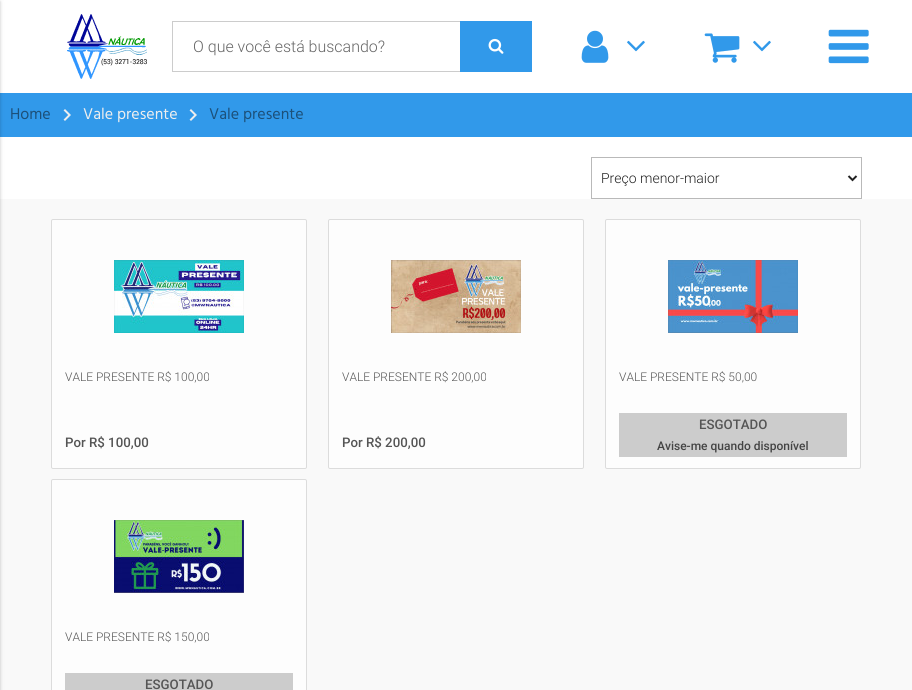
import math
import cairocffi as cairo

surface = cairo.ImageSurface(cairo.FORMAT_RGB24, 912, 690)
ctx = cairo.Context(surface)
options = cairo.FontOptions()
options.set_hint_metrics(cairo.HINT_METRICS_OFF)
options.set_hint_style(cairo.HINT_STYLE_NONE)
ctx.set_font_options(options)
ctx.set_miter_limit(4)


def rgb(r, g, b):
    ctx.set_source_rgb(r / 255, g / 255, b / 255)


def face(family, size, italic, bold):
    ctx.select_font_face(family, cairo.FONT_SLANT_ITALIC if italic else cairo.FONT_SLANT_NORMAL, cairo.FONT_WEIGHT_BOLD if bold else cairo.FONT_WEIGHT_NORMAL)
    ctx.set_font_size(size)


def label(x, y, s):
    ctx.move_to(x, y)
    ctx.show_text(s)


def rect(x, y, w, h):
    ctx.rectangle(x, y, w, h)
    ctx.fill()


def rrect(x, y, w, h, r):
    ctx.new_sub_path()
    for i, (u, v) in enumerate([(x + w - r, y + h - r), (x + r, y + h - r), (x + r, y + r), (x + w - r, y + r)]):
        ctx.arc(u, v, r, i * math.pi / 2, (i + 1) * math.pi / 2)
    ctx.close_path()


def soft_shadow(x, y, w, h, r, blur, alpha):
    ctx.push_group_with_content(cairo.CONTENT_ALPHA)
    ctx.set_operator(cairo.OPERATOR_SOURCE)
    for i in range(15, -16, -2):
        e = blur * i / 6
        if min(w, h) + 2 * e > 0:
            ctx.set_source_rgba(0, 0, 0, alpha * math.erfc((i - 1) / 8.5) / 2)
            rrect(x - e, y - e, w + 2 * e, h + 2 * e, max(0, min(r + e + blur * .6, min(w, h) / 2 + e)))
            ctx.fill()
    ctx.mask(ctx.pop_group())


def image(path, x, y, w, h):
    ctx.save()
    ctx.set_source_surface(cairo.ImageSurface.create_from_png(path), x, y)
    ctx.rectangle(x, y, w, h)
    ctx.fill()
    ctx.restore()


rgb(255, 255, 255)
ctx.paint()
rgb(49, 153, 234)
rect(0, 93, 912, 44)
rgb(249, 249, 249)
rect(0, 199, 912, 491)
rgb(0, 0, 0)
soft_shadow(-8, 1, 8, 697, 0, 2.5, 0.12)
soft_shadow(-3, 2, 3, 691, 0, 1, 0.14)
image('image0.png', 67, 14, 80, 65)
rgb(204, 204, 204)
rect(172, 21, 288, 1)
rect(172, 71, 288, 1)
rect(172, 21, 1, 51)
face('Roboto Light', 16, 0, 0)
rgb(102, 102, 102)
label(193, 52, 'O que você está buscando?')
rgb(49, 153, 234)
rect(460, 21, 72, 51)
image('image1.png', 488, 38, 16, 16)
image('image2.png', 581, 30, 28, 33)
image('image3.png', 627, 40, 18, 12)
image('image4.png', 704, 33, 36, 30)
image('image3.png', 753, 40, 18, 12)
image('image5.png', 828, 29, 41, 35)
face('Hind', 16, 0, 0)
rgb(28, 80, 121)
label(10, 119, 'Home')
image('image6.png', 63, 109, 8, 12)
rgb(238, 238, 238)
label(83, 119, 'Vale presente')
image('image6.png', 189, 109, 8, 12)
rgb(28, 80, 121)
label(209, 119, 'Vale presente')
ctx.rectangle(591.5, 157.5, 270, 41)
rgb(185, 185, 185)
ctx.set_line_width(1)
ctx.stroke()
ctx.new_path()
ctx.move_to(848.5, 176)
ctx.line_to(852.5, 180)
ctx.line_to(856.5, 176)
rgb(33, 33, 33)
ctx.set_line_width(2)
ctx.stroke()
face('Roboto Light', 14, 0, 0)
label(601, 183, 'Preço menor-maior')
rgb(253, 253, 253)
rrect(51.5, 219.5, 255, 249, 1.5)
ctx.fill_preserve()
rgb(220, 220, 220)
ctx.set_line_width(1)
ctx.stroke()
image('image7.png', 114, 260, 130, 73)
face('Roboto Light', 12, 0, 0)
rgb(85, 85, 85)
label(65, 381, 'VALE PRESENTE R$ 100,00')
face('Roboto Medium', 13.25, 0, 0)
label(65, 447, 'Por R$ 100,00')
rgb(253, 253, 253)
rrect(328.5, 219.5, 255, 249, 1.5)
ctx.fill_preserve()
rgb(220, 220, 220)
ctx.stroke()
image('image8.png', 391, 260, 130, 73)
face('Roboto Light', 12, 0, 0)
rgb(85, 85, 85)
label(342, 381, 'VALE PRESENTE R$ 200,00')
face('Roboto Medium', 13.25, 0, 0)
label(342, 447, 'Por R$ 200,00')
rgb(253, 253, 253)
rrect(605.5, 219.5, 255, 249, 1.5)
ctx.fill_preserve()
rgb(220, 220, 220)
ctx.stroke()
image('image9.png', 668, 260, 130, 73)
face('Roboto Light', 12, 0, 0)
rgb(85, 85, 85)
label(619, 381, 'VALE PRESENTE R$ 50,00')
rgb(204, 204, 204)
rect(619, 413, 228, 44)
face('Roboto Medium', 13.25, 0, 0)
rgb(85, 85, 85)
label(699, 429, 'ESGOTADO')
face('Roboto Medium', 12, 0, 0)
rgb(68, 68, 68)
label(657, 450, 'Avise-me quando disponível')
rgb(253, 253, 253)
rrect(51.5, 479.5, 255, 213, 1.5)
ctx.fill_preserve()
rgb(220, 220, 220)
ctx.stroke()
image('image10.png', 114, 520, 130, 73)
face('Roboto Light', 12, 0, 0)
rgb(85, 85, 85)
label(65, 641, 'VALE PRESENTE R$ 150,00')
rgb(204, 204, 204)
rect(65, 673, 228, 17)
face('Roboto Medium', 13.25, 0, 0)
rgb(85, 85, 85)
label(145, 689, 'ESGOTADO')
surface.write_to_png('render.png')
